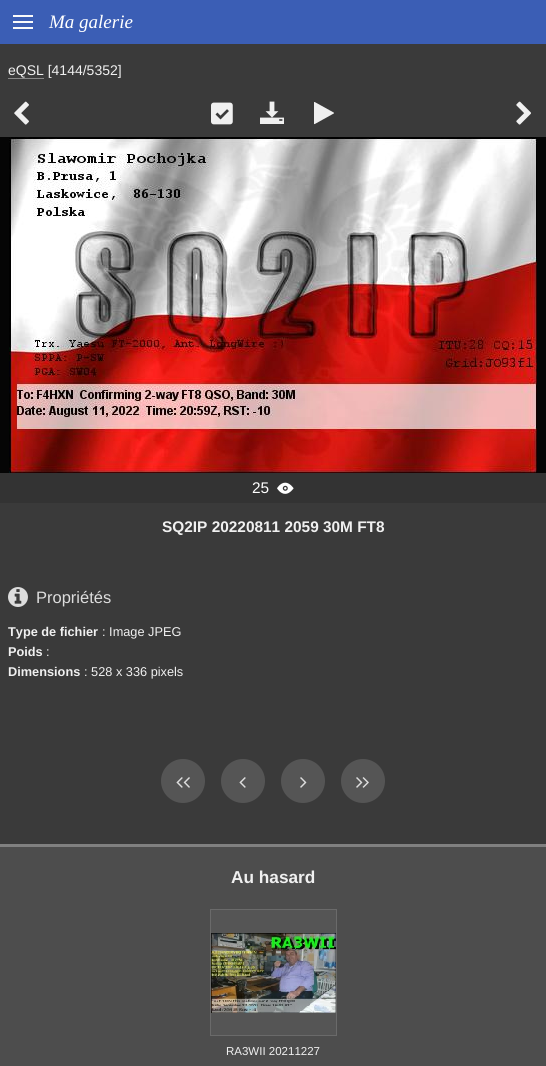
import math
import cairocffi as cairo

surface = cairo.ImageSurface(cairo.FORMAT_RGB24, 546, 1066)
ctx = cairo.Context(surface)
options = cairo.FontOptions()
options.set_hint_metrics(cairo.HINT_METRICS_OFF)
options.set_hint_style(cairo.HINT_STYLE_NONE)
ctx.set_font_options(options)
ctx.set_miter_limit(4)


def rgb(r, g, b):
    ctx.set_source_rgb(r / 255, g / 255, b / 255)


def face(family, size, italic, bold):
    ctx.select_font_face(family, cairo.FONT_SLANT_ITALIC if italic else cairo.FONT_SLANT_NORMAL, cairo.FONT_WEIGHT_BOLD if bold else cairo.FONT_WEIGHT_NORMAL)
    ctx.set_font_size(size)


def label(x, y, s):
    ctx.move_to(x, y)
    ctx.show_text(s)


def rect(x, y, w, h):
    ctx.rectangle(x, y, w, h)
    ctx.fill()


def image(path, x, y, w, h):
    ctx.save()
    ctx.set_source_surface(cairo.ImageSurface.create_from_png(path), x, y)
    ctx.rectangle(x, y, w, h)
    ctx.fill()
    ctx.restore()


rgb(58, 58, 58)
ctx.paint()
rgb(59, 94, 181)
rect(0, 0, 546, 44)
image('image0.png', 13, 15, 20, 14)
face('Liberation Serif', 19, 1, 0)
rgb(255, 255, 255)
label(49, 28, 'Ma galerie')
face('Liberation Sans', 14, 0, 0)
rgb(240, 240, 240)
label(8, 75, 'eQSL [4144/5352]')
rgb(136, 136, 136)
rect(8, 78, 36, 1)
image('image1.png', 14, 101, 15, 24)
image('image2.png', 211, 102, 22, 23)
image('image3.png', 260, 101, 24, 23)
image('image4.png', 314, 102, 20, 23)
image('image5.png', 516, 101, 15, 24)
rgb(5, 5, 5)
rect(0, 137, 546, 336)
image('image6.png', 9, 137, 528, 336)
rgb(51, 51, 51)
rect(0, 473, 546, 30)
face('Liberation Sans', 15.4, 0, 0)
rgb(255, 255, 255)
label(252, 493, '25')
image('image7.png', 277, 482, 17, 12)
face('Liberation Sans', 15.4, 0, 1)
rgb(240, 240, 240)
label(162, 532, 'SQ2IP 20220811 2059 30M FT8')
image('image8.png', 8, 587, 20, 20)
face('Liberation Sans', 16.5, 0, 0)
rgb(221, 221, 221)
label(36, 603, 'Propriétés')
face('Liberation Sans', 12.75, 0, 1)
rgb(240, 240, 240)
label(8, 636, 'Type de fichier')
face('Liberation Sans', 12.75, 0, 0)
label(102, 636, ': Image JPEG')
face('Liberation Sans', 12.75, 0, 1)
label(8, 656, 'Poids')
face('Liberation Sans', 12.75, 0, 0)
label(46, 656, ':')
face('Liberation Sans', 12.75, 0, 1)
label(8, 676, 'Dimensions')
face('Liberation Sans', 12.75, 0, 0)
label(84, 676, ': 528 x 336 pixels')
rgb(85, 85, 85)
ctx.new_path()
ctx.arc(183, 781, 22, 0, 2 * math.pi)
ctx.fill()
image('image9.png', 176, 777, 14, 11)
ctx.arc(243, 781, 22, 0, 2 * math.pi)
ctx.fill()
image('image10.png', 239, 777, 7, 11)
ctx.arc(303, 781, 22, 0, 2 * math.pi)
ctx.fill()
image('image11.png', 300, 777, 7, 11)
ctx.arc(363, 781, 22, 0, 2 * math.pi)
ctx.fill()
image('image12.png', 356, 777, 13, 11)
rgb(77, 77, 77)
rect(0, 847, 546, 219)
rgb(128, 128, 128)
rect(0, 844, 546, 3)
face('Liberation Sans', 17.25, 0, 1)
rgb(240, 240, 240)
label(231, 883, 'Au hasard')
rgb(85, 85, 85)
ctx.rectangle(210.5, 909.5, 126, 126)
ctx.fill_preserve()
rgb(106, 106, 106)
ctx.set_line_width(1)
ctx.stroke()
image('image13.png', 211, 933, 125, 80)
face('Liberation Sans', 11.5, 0, 0)
rgb(240, 240, 240)
label(226, 1055, 'RA3WII 20211227')
surface.write_to_png('render.png')
